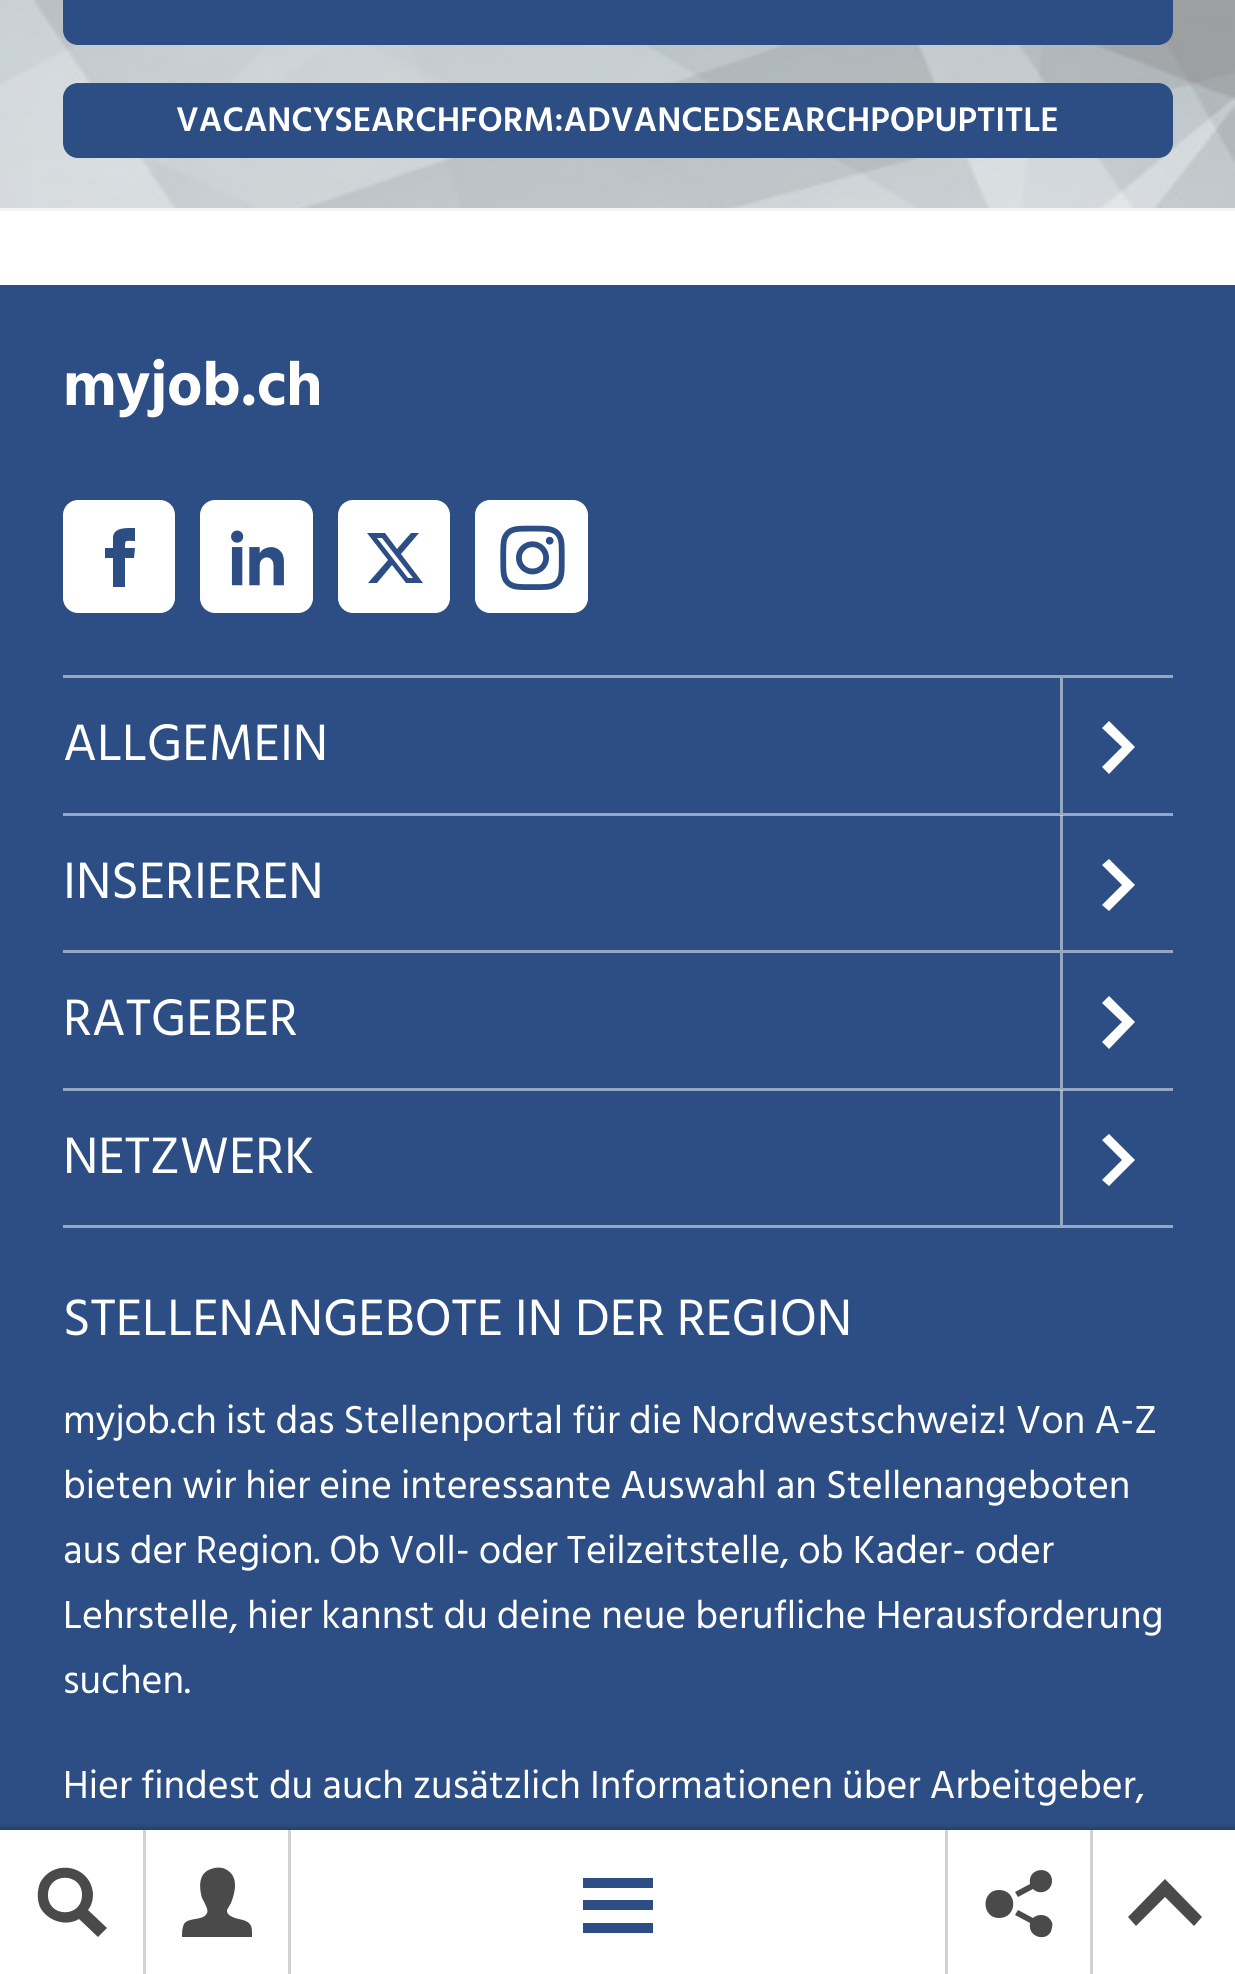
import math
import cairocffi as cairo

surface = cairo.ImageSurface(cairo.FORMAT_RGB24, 1235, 1974)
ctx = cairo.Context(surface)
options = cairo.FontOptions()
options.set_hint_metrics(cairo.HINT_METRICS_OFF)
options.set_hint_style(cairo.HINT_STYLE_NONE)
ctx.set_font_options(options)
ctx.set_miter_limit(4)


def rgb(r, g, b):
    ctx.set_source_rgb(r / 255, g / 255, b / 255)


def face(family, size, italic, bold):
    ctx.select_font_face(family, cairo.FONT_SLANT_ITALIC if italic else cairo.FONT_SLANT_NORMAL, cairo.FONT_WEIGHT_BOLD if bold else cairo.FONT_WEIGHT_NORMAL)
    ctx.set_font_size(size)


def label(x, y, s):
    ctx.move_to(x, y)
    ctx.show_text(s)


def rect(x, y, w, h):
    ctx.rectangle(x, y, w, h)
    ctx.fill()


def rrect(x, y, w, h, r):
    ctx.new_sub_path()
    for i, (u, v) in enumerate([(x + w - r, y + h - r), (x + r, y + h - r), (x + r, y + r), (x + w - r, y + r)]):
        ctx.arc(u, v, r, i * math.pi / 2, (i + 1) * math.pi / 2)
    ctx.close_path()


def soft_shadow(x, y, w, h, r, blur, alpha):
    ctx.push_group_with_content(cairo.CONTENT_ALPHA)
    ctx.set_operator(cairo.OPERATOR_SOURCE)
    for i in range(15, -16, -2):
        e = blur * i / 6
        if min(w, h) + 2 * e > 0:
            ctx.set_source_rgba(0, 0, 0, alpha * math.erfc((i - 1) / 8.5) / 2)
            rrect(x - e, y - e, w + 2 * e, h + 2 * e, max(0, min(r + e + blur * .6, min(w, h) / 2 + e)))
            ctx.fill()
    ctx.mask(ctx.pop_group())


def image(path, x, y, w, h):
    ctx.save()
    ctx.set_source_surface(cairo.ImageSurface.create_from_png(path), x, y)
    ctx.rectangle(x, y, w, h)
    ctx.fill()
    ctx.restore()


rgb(255, 255, 255)
ctx.paint()
image('image0.png', 0, 0, 1235, 208)
rgb(244, 244, 245)
rect(0, 208, 1235, 3)
rgb(45, 78, 132)
rrect(63, -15, 1110, 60, 15)
ctx.fill()
rrect(63, 83, 1110, 75, 15)
ctx.fill()
face('Hind Siliguri SemiBold', 35, 0, 0)
rgb(255, 255, 255)
label(176, 131, 'VACANCYSEARCHFORM:ADVANCEDSEARCHPOPUPTITLE')
rgb(45, 78, 132)
rect(0, 285, 1235, 1545)
rgb(0, 0, 0)
soft_shadow(0, 1830, 1235, 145, 0, 4, 0.4)
rgb(255, 255, 255)
rect(0, 1830, 1235, 144)
rgb(210, 210, 210)
rect(143, 1830, 3, 144)
rgb(74, 74, 74)
ctx.new_path()
ctx.move_to(107, 1928)
ctx.line_to(88, 1910)
ctx.curve_to(92, 1905, 93, 1899, 93, 1894)
ctx.curve_to(91, 1865, 53, 1858, 40, 1883)
ctx.curve_to(37, 1891, 37, 1900, 40, 1907)
ctx.curve_to(47, 1921, 66, 1927, 79, 1919)
ctx.line_to(98, 1937)
ctx.close_path()
ctx.move_to(48, 1895)
ctx.curve_to(48, 1872, 82, 1872, 82, 1895)
ctx.curve_to(82, 1918, 48, 1918, 48, 1895)
ctx.close_path()
ctx.fill()
rgb(210, 210, 210)
rect(288, 1830, 3, 144)
rgb(74, 74, 74)
ctx.new_path()
ctx.move_to(243, 1920)
ctx.curve_to(239, 1919, 226, 1917, 227, 1910)
ctx.line_to(231, 1903)
ctx.curve_to(235, 1893, 239, 1877, 227, 1870)
ctx.curve_to(223, 1867, 216, 1867, 211, 1869)
ctx.curve_to(198, 1873, 199, 1888, 202, 1898)
ctx.curve_to(204, 1902, 209, 1910, 207, 1913)
ctx.curve_to(204, 1921, 188, 1917, 184, 1924)
ctx.curve_to(182, 1928, 182, 1933, 182, 1937)
ctx.line_to(252, 1937)
ctx.curve_to(252, 1929, 253, 1923, 243, 1920)
ctx.close_path()
ctx.fill()
rgb(45, 78, 132)
rect(583, 1878, 70, 10)
rect(583, 1900, 70, 10)
rect(583, 1923, 70, 10)
rgb(210, 210, 210)
rect(945, 1830, 3, 144)
rgb(74, 74, 74)
ctx.new_path()
ctx.move_to(999, 1890)
ctx.curve_to(1018, 1890, 1018, 1918, 999, 1918)
ctx.curve_to(981, 1918, 981, 1890, 999, 1890)
ctx.close_path()
ctx.move_to(1030, 1923)
ctx.curve_to(1027, 1939, 1051, 1943, 1052, 1927)
ctx.curve_to(1053, 1924, 1052, 1921, 1049, 1918)
ctx.curve_to(1045, 1914, 1037, 1914, 1033, 1918)
ctx.line_to(1018, 1910)
ctx.line_to(1015, 1915)
ctx.close_path()
ctx.move_to(1052, 1881)
ctx.curve_to(1052, 1865, 1027, 1867, 1030, 1884)
ctx.line_to(1015, 1892)
ctx.line_to(1018, 1897)
ctx.line_to(1033, 1889)
ctx.curve_to(1040, 1896, 1052, 1891, 1052, 1881)
ctx.close_path()
ctx.fill()
rgb(210, 210, 210)
rect(1090, 1830, 3, 144)
rgb(74, 74, 74)
ctx.new_path()
ctx.move_to(1128, 1917)
ctx.line_to(1136, 1926)
ctx.line_to(1165, 1897)
ctx.line_to(1194, 1926)
ctx.line_to(1202, 1917)
ctx.line_to(1165, 1879)
ctx.close_path()
ctx.fill()
rgb(150, 167, 194)
rect(63, 1088, 1110, 3)
rect(63, 813, 1110, 3)
face('Hind Siliguri', 62.5, 0, 1)
rgb(255, 255, 255)
label(63, 405, 'myjob.ch')
rrect(63, 500, 112, 113, 15)
ctx.fill()
rgb(45, 78, 132)
ctx.new_path()
ctx.move_to(113, 548)
ctx.line_to(105, 548)
ctx.line_to(105, 558)
ctx.line_to(113, 558)
ctx.line_to(113, 587)
ctx.line_to(125, 587)
ctx.line_to(125, 558)
ctx.line_to(134, 558)
ctx.line_to(135, 548)
ctx.line_to(125, 548)
ctx.curve_to(125, 539, 125, 541, 135, 541)
ctx.line_to(135, 528)
ctx.curve_to(127, 528, 114, 527, 113, 537)
ctx.close_path()
ctx.fill()
rgb(255, 255, 255)
rrect(200, 500, 113, 113, 15)
ctx.fill()
image('image1.png', 231, 530, 53, 56)
rrect(338, 500, 112, 113, 15)
ctx.fill()
rgb(45, 78, 132)
ctx.new_path()
ctx.move_to(411, 533)
ctx.line_to(419, 533)
ctx.line_to(401, 554)
ctx.line_to(423, 583)
ctx.line_to(406, 583)
ctx.line_to(392, 565)
ctx.line_to(377, 583)
ctx.line_to(368, 583)
ctx.line_to(388, 560)
ctx.line_to(367, 533)
ctx.line_to(385, 533)
ctx.line_to(397, 549)
ctx.close_path()
ctx.move_to(408, 578)
ctx.line_to(413, 578)
ctx.line_to(382, 538)
ctx.line_to(377, 538)
ctx.close_path()
ctx.fill()
rgb(255, 255, 255)
rrect(475, 500, 113, 113, 15)
ctx.fill()
image('image2.png', 500, 525, 65, 65)
rgb(150, 167, 194)
rect(63, 675, 1110, 3)
face('Hind Siliguri', 52.5, 0, 0)
rgb(255, 255, 255)
label(63, 760, 'ALLGEMEIN')
rgb(150, 167, 194)
rect(1060, 678, 3, 135)
rgb(255, 255, 255)
ctx.new_path()
ctx.move_to(1102, 728)
ctx.line_to(1109, 721)
ctx.line_to(1135, 747)
ctx.line_to(1109, 774)
ctx.line_to(1102, 767)
ctx.line_to(1122, 747)
ctx.close_path()
ctx.fill()
label(63, 898, 'INSERIEREN')
rgb(150, 167, 194)
rect(1060, 815, 3, 135)
rgb(203, 211, 225)
rect(1060, 815, 3, 1)
rgb(255, 255, 255)
ctx.new_path()
ctx.move_to(1102, 865)
ctx.line_to(1109, 859)
ctx.line_to(1135, 885)
ctx.line_to(1109, 911)
ctx.line_to(1102, 905)
ctx.line_to(1122, 885)
ctx.close_path()
ctx.fill()
rgb(150, 167, 194)
rect(63, 950, 1110, 3)
rgb(255, 255, 255)
label(63, 1035, 'RATGEBER')
rgb(150, 167, 194)
rect(1060, 953, 3, 135)
rgb(255, 255, 255)
ctx.new_path()
ctx.move_to(1102, 1003)
ctx.line_to(1109, 996)
ctx.line_to(1135, 1022)
ctx.line_to(1109, 1049)
ctx.line_to(1102, 1042)
ctx.line_to(1122, 1022)
ctx.close_path()
ctx.fill()
label(63, 1173, 'NETZWERK')
rgb(150, 167, 194)
rect(1060, 1090, 3, 135)
rgb(203, 211, 225)
rect(1060, 1090, 3, 1)
rgb(255, 255, 255)
ctx.new_path()
ctx.move_to(1102, 1140)
ctx.line_to(1109, 1134)
ctx.line_to(1135, 1160)
ctx.line_to(1109, 1186)
ctx.line_to(1102, 1180)
ctx.line_to(1122, 1160)
ctx.close_path()
ctx.fill()
rgb(150, 167, 194)
rect(63, 1225, 1110, 3)
rgb(255, 255, 255)
label(63, 1335, 'STELLENANGEBOTE IN DER REGION')
face('Hind Siliguri', 40, 0, 0)
label(63, 1433, 'myjob.ch ist das Stellenportal für die Nordwestschweiz! Von A-Z')
label(63, 1498, 'bieten wir hier eine interessante Auswahl an Stellenangeboten')
label(63, 1563, 'aus der Region. Ob Voll- oder Teilzeitstelle, ob Kader- oder')
label(63, 1628, 'Lehrstelle, hier kannst du deine neue berufliche Herausforderung')
label(63, 1693, 'suchen.')
label(63, 1798, 'Hier findest du auch zusätzlich Informationen über Arbeitgeber,')
surface.write_to_png('render.png')
